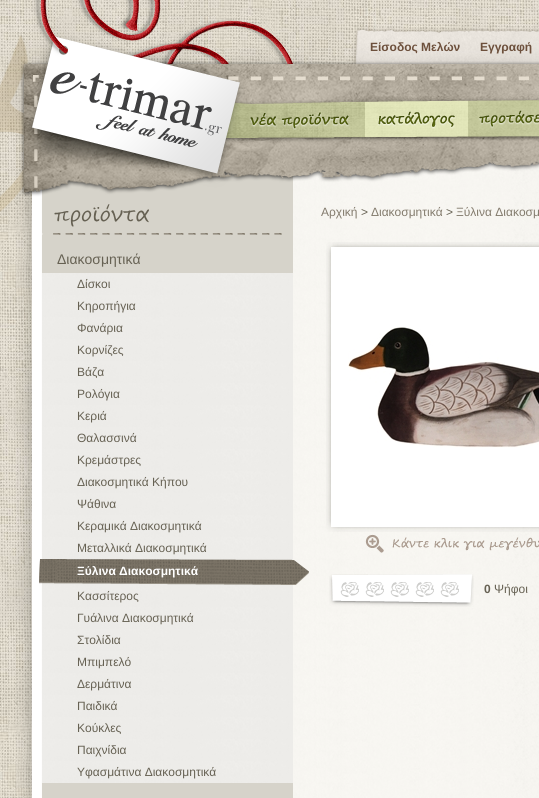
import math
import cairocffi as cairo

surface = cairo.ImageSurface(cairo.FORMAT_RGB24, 539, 798)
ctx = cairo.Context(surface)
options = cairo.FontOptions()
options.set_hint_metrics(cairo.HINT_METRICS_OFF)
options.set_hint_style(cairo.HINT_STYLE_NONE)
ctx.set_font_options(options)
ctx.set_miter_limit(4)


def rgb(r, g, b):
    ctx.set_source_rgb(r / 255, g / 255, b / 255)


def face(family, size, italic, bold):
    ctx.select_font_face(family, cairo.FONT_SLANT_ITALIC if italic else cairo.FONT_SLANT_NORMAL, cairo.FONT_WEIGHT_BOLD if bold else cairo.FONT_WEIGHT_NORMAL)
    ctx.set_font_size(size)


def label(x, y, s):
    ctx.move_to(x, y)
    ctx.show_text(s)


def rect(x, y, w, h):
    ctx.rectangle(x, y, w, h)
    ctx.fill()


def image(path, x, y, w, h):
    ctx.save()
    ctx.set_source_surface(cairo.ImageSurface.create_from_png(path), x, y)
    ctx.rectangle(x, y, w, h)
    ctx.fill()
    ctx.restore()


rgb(255, 255, 255)
ctx.paint()
image('image0.png', 0, 0, 539, 798)
image('image1.png', 0, 35, 29, 177)
image('image7.png', 32, 161, 507, 637)
rgb(214, 211, 202)
rect(42, 171, 251, 627)
image('image9.png', 54, 204, 95, 23)
image('image2.png', 15, 0, 524, 205)
face('Liberation Sans', 12, 0, 1)
rgb(109, 80, 60)
label(370, 51, 'Είσοδος Μελών')
label(480, 51, 'Εγγραφή')
image('image3.png', 249, 112, 101, 18)
image('image4.png', 365, 100, 103, 38)
image('image5.png', 478, 108, 61, 22)
image('image6.png', 15, 205, 17, 593)
image('image8.png', 42, 233, 240, 2)
face('Liberation Sans', 14, 0, 0)
rgb(102, 97, 83)
label(57, 264, 'Διακοσμητικά')
image('image10.png', 42, 273, 251, 22)
face('Liberation Sans', 12, 0, 0)
label(77, 288, 'Δίσκοι')
image('image10.png', 42, 295, 251, 22)
label(77, 310, 'Κηροπήγια')
image('image10.png', 42, 317, 251, 22)
label(77, 332, 'Φανάρια')
image('image10.png', 42, 339, 251, 22)
label(77, 354, 'Κορνίζες')
image('image10.png', 42, 361, 251, 22)
label(77, 376, 'Βάζα')
image('image10.png', 42, 383, 251, 22)
label(77, 398, 'Ρολόγια')
image('image10.png', 42, 405, 251, 22)
label(77, 420, 'Κεριά')
image('image10.png', 42, 427, 251, 22)
label(77, 442, 'Θαλασσινά')
image('image10.png', 42, 449, 251, 22)
label(77, 464, 'Κρεμάστρες')
image('image10.png', 42, 471, 251, 22)
label(77, 486, 'Διακοσμητικά Κήπου')
image('image10.png', 42, 493, 251, 22)
label(77, 508, 'Ψάθινα')
image('image10.png', 42, 515, 251, 22)
label(77, 530, 'Κεραμικά Διακοσμητικά')
image('image10.png', 42, 537, 251, 22)
label(77, 552, 'Μεταλλικά Διακοσμητικά')
image('image11.png', 39, 559, 270, 26)
face('Liberation Sans', 12, 0, 1)
rgb(255, 255, 255)
label(77, 575, 'Ξύλινα Διακοσμητικά')
image('image10.png', 42, 585, 251, 22)
face('Liberation Sans', 12, 0, 0)
rgb(102, 97, 83)
label(77, 600, 'Κασσίτερος')
image('image10.png', 42, 607, 251, 22)
label(77, 622, 'Γυάλινα Διακοσμητικά')
image('image10.png', 42, 629, 251, 22)
label(77, 644, 'Στολίδια')
image('image10.png', 42, 651, 251, 22)
label(77, 666, 'Μπιμπελό')
image('image10.png', 42, 673, 251, 22)
label(77, 688, 'Δερμάτινα')
image('image10.png', 42, 695, 251, 22)
label(77, 710, 'Παιδικά')
image('image10.png', 42, 717, 251, 22)
label(77, 732, 'Κούκλες')
image('image10.png', 42, 739, 251, 22)
label(77, 754, 'Παιχνίδια')
image('image10.png', 42, 761, 251, 22)
label(77, 776, 'Υφασμάτινα Διακοσμητικά')
rgb(131, 123, 109)
label(321, 216, 'Αρχική')
rgb(102, 97, 83)
label(361, 216, '>')
rgb(131, 123, 109)
label(371, 216, 'Διακοσμητικά')
rgb(102, 97, 83)
label(446, 216, '>')
rgb(131, 123, 109)
label(456, 216, 'Ξύλινα Διακοσμ')
image('image12.png', 326, 242, 213, 290)
image('image13.png', 348, 327, 191, 121)
image('image14.png', 365, 534, 174, 19)
image('image15.png', 329, 574, 145, 33)
image('image16.png', 340, 582, 19, 15)
image('image16.png', 365, 582, 19, 15)
image('image16.png', 390, 582, 19, 15)
image('image16.png', 415, 582, 19, 15)
image('image16.png', 440, 582, 19, 15)
face('Liberation Sans', 12, 0, 1)
rgb(102, 97, 83)
label(484, 593, '0')
face('Liberation Sans', 12, 0, 0)
label(494, 593, 'Ψήφοι')
surface.write_to_png('render.png')
